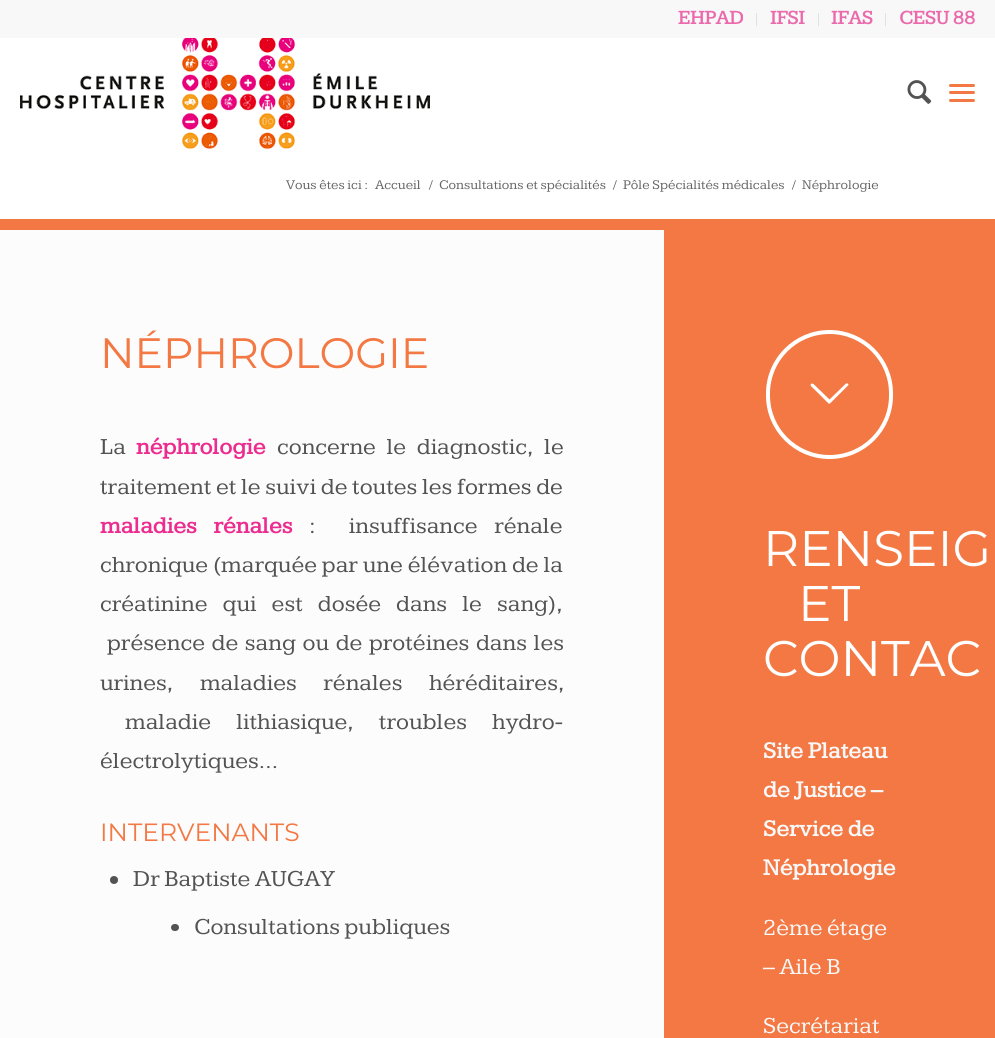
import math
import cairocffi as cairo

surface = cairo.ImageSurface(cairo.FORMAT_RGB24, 995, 1038)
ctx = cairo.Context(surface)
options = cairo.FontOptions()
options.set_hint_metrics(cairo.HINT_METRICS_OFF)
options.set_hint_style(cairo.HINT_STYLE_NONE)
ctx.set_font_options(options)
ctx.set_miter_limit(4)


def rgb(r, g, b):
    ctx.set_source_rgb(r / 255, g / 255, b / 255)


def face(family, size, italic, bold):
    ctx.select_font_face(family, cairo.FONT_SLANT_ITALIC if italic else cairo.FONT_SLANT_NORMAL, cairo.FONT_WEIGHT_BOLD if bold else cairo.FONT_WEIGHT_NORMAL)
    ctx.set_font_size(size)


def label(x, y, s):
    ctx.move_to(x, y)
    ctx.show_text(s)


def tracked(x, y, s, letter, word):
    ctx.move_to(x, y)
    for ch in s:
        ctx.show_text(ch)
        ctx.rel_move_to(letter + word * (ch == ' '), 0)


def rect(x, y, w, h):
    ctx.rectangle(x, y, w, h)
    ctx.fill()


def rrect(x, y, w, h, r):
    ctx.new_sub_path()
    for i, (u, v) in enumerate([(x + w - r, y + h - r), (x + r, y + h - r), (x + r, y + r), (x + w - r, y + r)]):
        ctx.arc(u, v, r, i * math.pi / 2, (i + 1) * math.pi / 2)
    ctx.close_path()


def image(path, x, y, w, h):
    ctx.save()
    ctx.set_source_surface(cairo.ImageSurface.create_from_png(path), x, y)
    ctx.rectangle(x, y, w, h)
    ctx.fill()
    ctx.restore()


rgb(255, 255, 255)
ctx.paint()
rgb(248, 248, 248)
rect(0, 0, 995, 38)
rgb(225, 225, 225)
rect(756, 13, 1, 13)
face('Kameron', 20, 0, 1)
rgb(234, 106, 172)
label(678, 24, 'EHPAD')
rgb(225, 225, 225)
rect(818, 13, 1, 13)
rgb(234, 106, 172)
label(770, 24, 'IFSI')
rgb(225, 225, 225)
rect(885, 13, 1, 13)
rgb(234, 106, 172)
label(831, 24, 'IFAS')
label(899, 24, 'CESU 88')
image('image0.png', 20, 38, 410, 111)
image('image1.png', 907, 80, 25, 24)
rgb(243, 120, 67)
rrect(949, 91, 26, 3, 1.5)
ctx.fill()
rrect(949, 84, 26, 3, 1.5)
ctx.fill()
rrect(949, 99, 26, 3, 1.5)
ctx.fill()
face('Kameron', 13.75, 0, 0)
rgb(102, 102, 102)
label(286, 189, 'Vous êtes ici :')
label(375, 189, 'Accueil')
label(429, 189, '/')
label(439, 189, 'Consultations et spécialités')
label(613, 189, '/')
label(623, 189, 'Pôle Spécialités médicales')
label(792, 189, '/')
label(802, 189, 'Néphrologie')
rgb(243, 120, 67)
rect(0, 219, 995, 11)
rgb(252, 252, 252)
rect(0, 230, 664, 808)
face('Montserrat Thin', 42.5, 0, 0)
rgb(243, 120, 67)
label(100, 368, 'NÉPHROLOGIE')
face('Kameron', 23.75, 0, 0)
rgb(83, 83, 83)
label(100, 454, 'La')
face('Kameron', 23.75, 0, 1)
rgb(236, 44, 143)
label(136, 454, 'néphrologie')
face('Kameron', 23.75, 0, 0)
rgb(83, 83, 83)
tracked(277, 454, 'concerne le diagnostic, le', 0, 6)
label(100, 494, 'traitement et le suivi de toutes les formes de')
face('Kameron', 23.75, 0, 1)
rgb(236, 44, 143)
tracked(100, 533, 'maladies rénales', 0, 12)
face('Kameron', 23.75, 0, 0)
rgb(83, 83, 83)
tracked(309, 533, ':  insuffisance rénale', 0, 12)
tracked(100, 572, 'chronique (marquée par une élévation de la', 0, 0.25)
tracked(100, 611, 'créatinine qui est dosée dans le sang),', 0, 10.5)
tracked(107, 650, 'présence de sang ou de protéines dans les', 0, 2)
tracked(100, 690, 'urines, maladies rénales héréditaires,', 0, 22)
tracked(125, 729, 'maladie lithiasique, troubles hydro-', 0, 20.5)
label(100, 768, 'électrolytiques…')
face('Montserrat Thin', 25, 0, 0)
rgb(243, 120, 67)
label(100, 841, 'INTERVENANTS')
rgb(83, 83, 83)
ctx.new_path()
ctx.arc(114, 880, 4, 0, 2 * math.pi)
ctx.fill()
face('Kameron', 23.75, 0, 0)
label(133, 886, 'Dr Baptiste AUGAY')
rrect(171, 924, 8, 7, 3.5)
ctx.fill()
label(194, 934, 'Consultations publiques')
rgb(243, 120, 67)
rect(664, 230, 331, 808)
rrect(768, 332, 123, 125, 61.5)
rgb(255, 255, 255)
ctx.set_line_width(4)
ctx.stroke()
ctx.new_path()
ctx.move_to(813.5, 384)
ctx.line_to(829.5, 399.5)
ctx.line_to(846, 383.5)
ctx.curve_to(847, 383, 848.5, 383.5, 848.5, 385)
ctx.line_to(848, 385.5)
ctx.line_to(830, 403.5)
ctx.line_to(828.5, 403.5)
ctx.line_to(814, 389)
ctx.curve_to(813.5, 388.5, 808, 384.5, 812, 383.5)
ctx.close_path()
ctx.fill()
face('Montserrat Thin', 50, 0, 0)
label(763, 566, 'RENSEIG')
label(798, 621, 'ET')
label(763, 676, 'CONTAC')
face('Kameron', 23.75, 0, 1)
rgb(248, 248, 248)
label(763, 758, 'Site Plateau')
label(763, 797, 'de Justice –')
label(763, 836, 'Service de')
label(763, 875, 'Néphrologie')
face('Kameron', 23.75, 0, 0)
label(763, 935, '2ème étage')
label(763, 974, '– Aile B')
label(763, 1033, 'Secrétariat')
surface.write_to_png('render.png')
